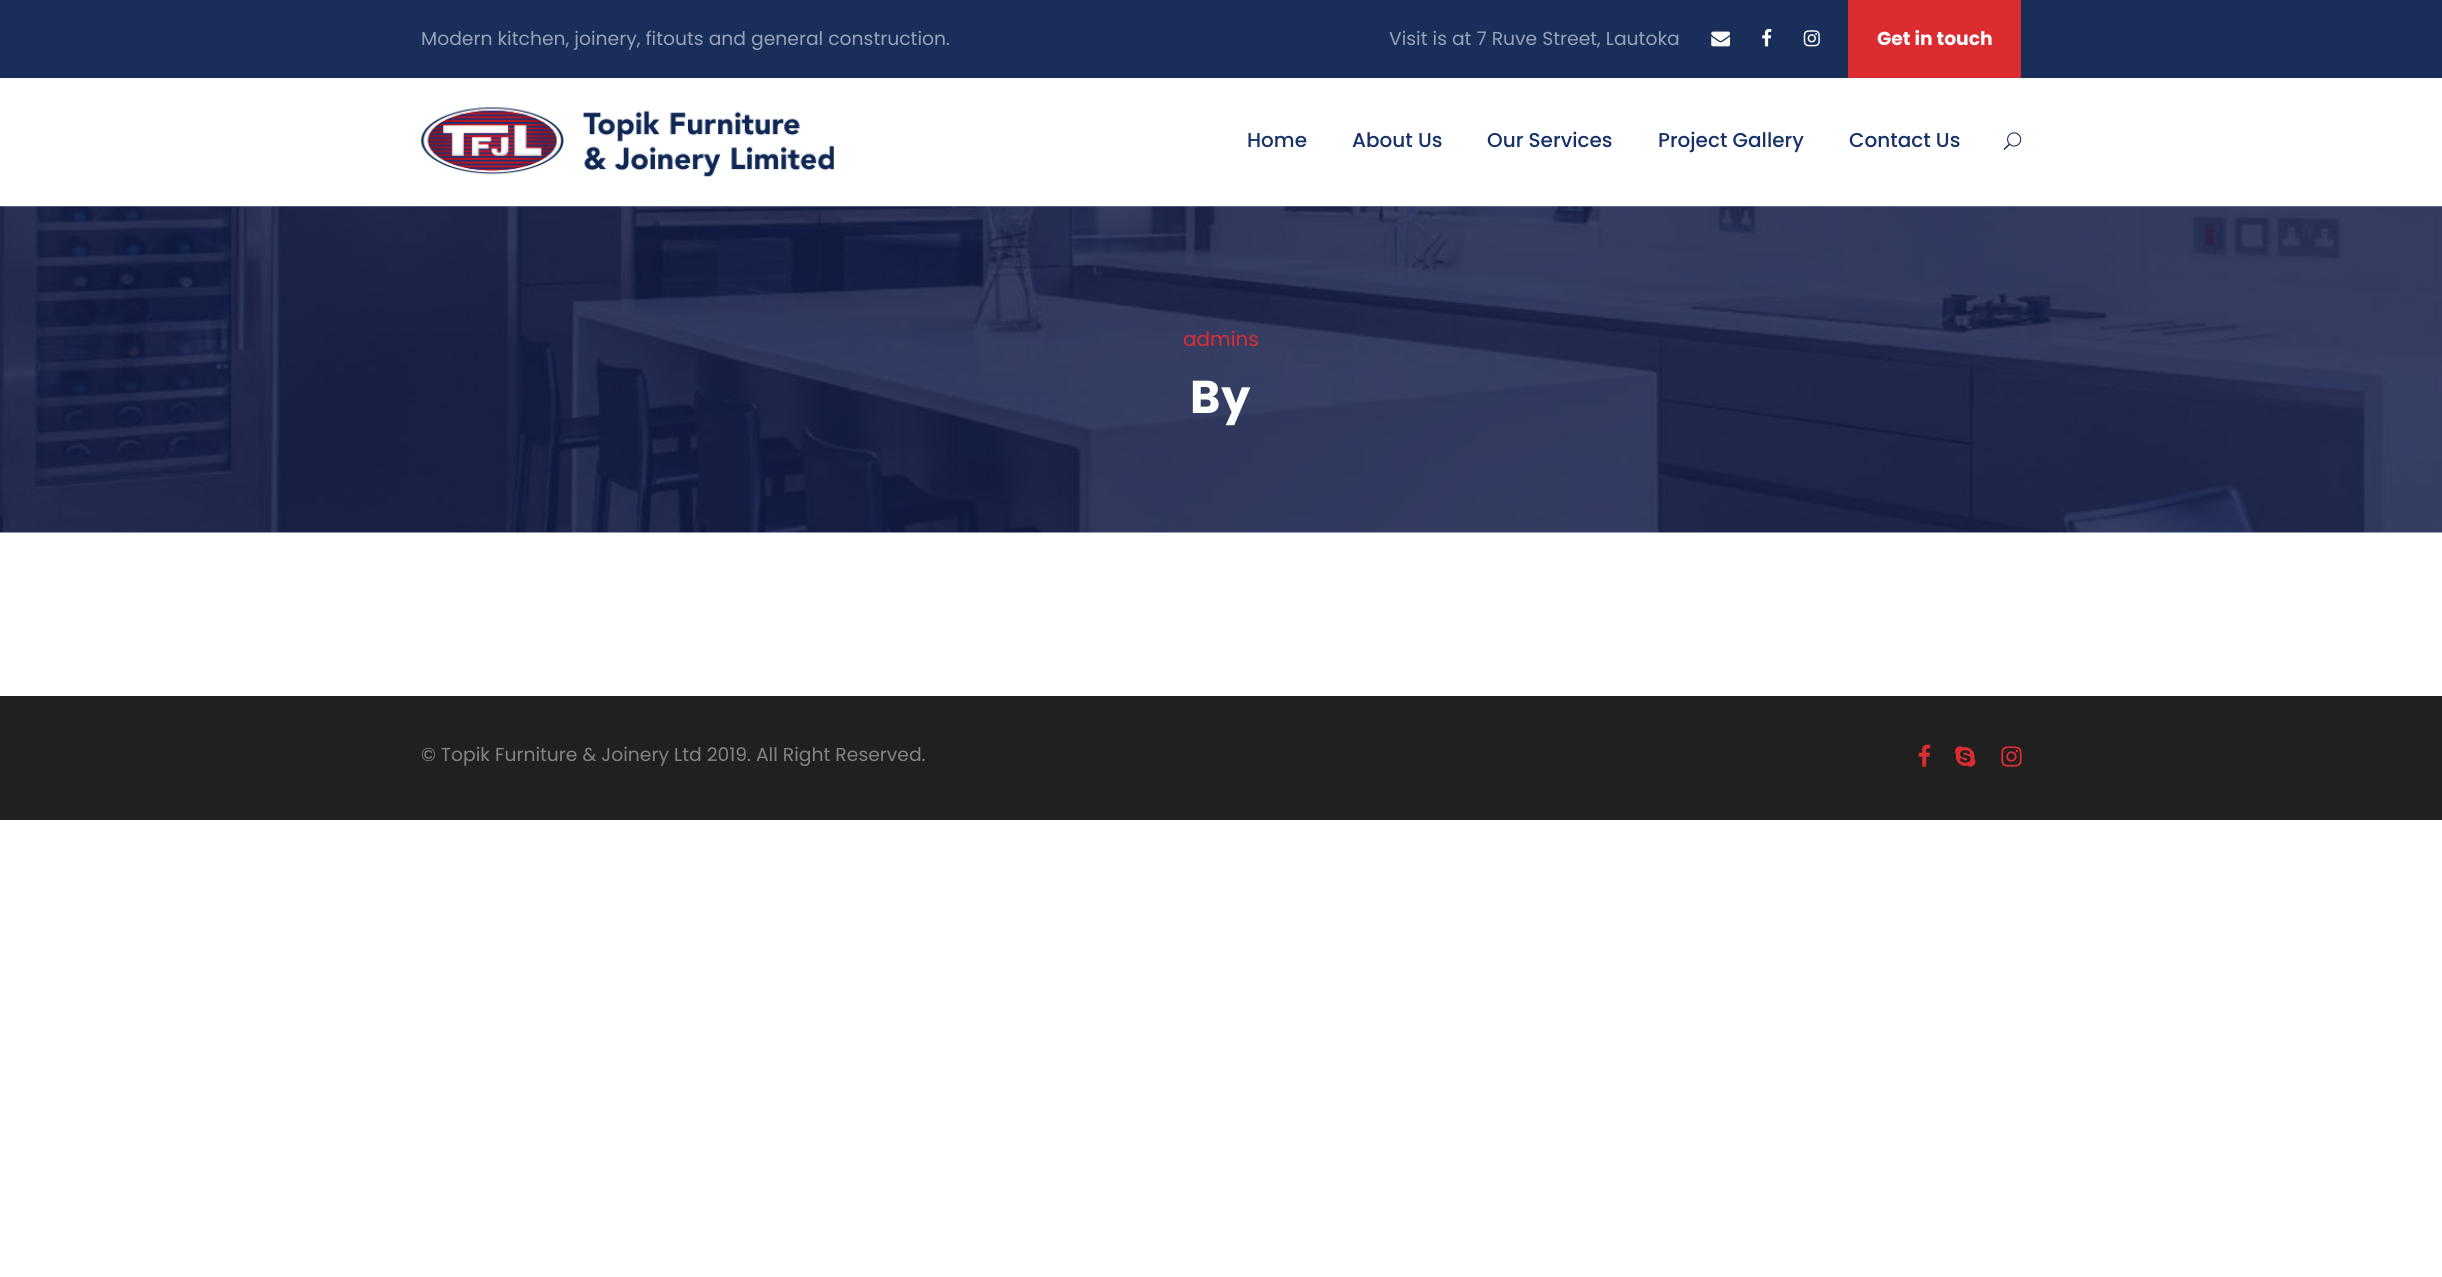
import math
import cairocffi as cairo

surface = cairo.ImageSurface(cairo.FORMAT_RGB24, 2442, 1277)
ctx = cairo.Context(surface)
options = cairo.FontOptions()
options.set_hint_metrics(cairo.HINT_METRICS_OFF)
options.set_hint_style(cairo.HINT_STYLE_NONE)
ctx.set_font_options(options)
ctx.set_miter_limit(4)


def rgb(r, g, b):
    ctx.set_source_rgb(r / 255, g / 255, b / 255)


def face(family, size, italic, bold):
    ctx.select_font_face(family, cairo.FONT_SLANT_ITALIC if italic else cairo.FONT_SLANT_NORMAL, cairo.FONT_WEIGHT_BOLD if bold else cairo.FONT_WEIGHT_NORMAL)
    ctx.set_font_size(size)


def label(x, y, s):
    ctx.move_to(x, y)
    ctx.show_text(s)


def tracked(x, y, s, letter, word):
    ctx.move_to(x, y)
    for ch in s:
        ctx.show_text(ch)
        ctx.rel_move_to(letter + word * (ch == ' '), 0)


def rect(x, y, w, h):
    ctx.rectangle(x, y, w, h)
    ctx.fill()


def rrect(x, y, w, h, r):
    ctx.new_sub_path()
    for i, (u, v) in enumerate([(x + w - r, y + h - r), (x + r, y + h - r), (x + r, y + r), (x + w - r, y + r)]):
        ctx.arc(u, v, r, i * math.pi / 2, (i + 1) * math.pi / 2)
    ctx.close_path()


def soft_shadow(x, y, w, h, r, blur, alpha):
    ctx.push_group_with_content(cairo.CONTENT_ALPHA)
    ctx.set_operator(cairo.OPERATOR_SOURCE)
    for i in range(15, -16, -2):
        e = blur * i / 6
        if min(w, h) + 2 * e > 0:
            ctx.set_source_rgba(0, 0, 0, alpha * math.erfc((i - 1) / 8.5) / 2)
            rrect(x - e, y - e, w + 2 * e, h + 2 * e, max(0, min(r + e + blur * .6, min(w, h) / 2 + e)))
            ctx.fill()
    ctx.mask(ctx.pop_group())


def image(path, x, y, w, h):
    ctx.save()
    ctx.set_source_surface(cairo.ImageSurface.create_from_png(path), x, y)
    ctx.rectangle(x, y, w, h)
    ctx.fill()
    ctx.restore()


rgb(255, 255, 255)
ctx.paint()
rgb(25, 47, 89)
rect(0, 0, 2442, 78)
face('Poppins', 18.75, 0, 0)
rgb(150, 162, 184)
label(421, 45, 'Modern kitchen, joinery, fitouts and general construction.')
label(1389, 45, 'Visit is at 7 Ruve Street, Lautoka')
image('image0.png', 1711, 31, 19, 16)
image('image1.png', 1762, 28, 10, 19)
image('image2.png', 1803, 30, 17, 17)
rgb(219, 44, 50)
rect(1848, 0, 173, 78)
face('Poppins', 18.75, 0, 1)
rgb(255, 255, 255)
label(1877, 45, 'Get in touch')
rgb(0, 0, 0)
soft_shadow(0, 79, 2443, 129, 0, 2.5, 0.1)
rgb(255, 255, 255)
rect(0, 78, 2442, 128)
image('image3.png', 421, 107, 413, 70)
face('Poppins Medium', 20, 0, 0)
rgb(22, 50, 105)
label(1247, 147, 'Home')
label(1352, 147, 'About Us')
label(1487, 147, 'Our Services')
label(1658, 147, 'Project Gallery')
label(1849, 147, 'Contact Us')
image('image4.png', 2003, 132, 19, 18)
image('image5.png', 0, 206, 2442, 327)
face('Poppins', 20, 0, 0)
rgb(219, 44, 50)
label(1183, 346, 'admins')
face('Poppins', 46, 0, 1)
rgb(255, 255, 255)
tracked(1190, 413, 'By', 1, 0)
rgb(32, 32, 32)
rect(0, 696, 2442, 124)
face('Poppins', 18.75, 0, 0)
rgb(131, 131, 131)
label(421, 761, '© Topik Furniture & Joinery Ltd 2019. All Right Reserved.')
image('image6.png', 1918, 744, 13, 23)
image('image7.png', 1955, 746, 21, 21)
image('image8.png', 2001, 746, 21, 21)
surface.write_to_png('render.png')
